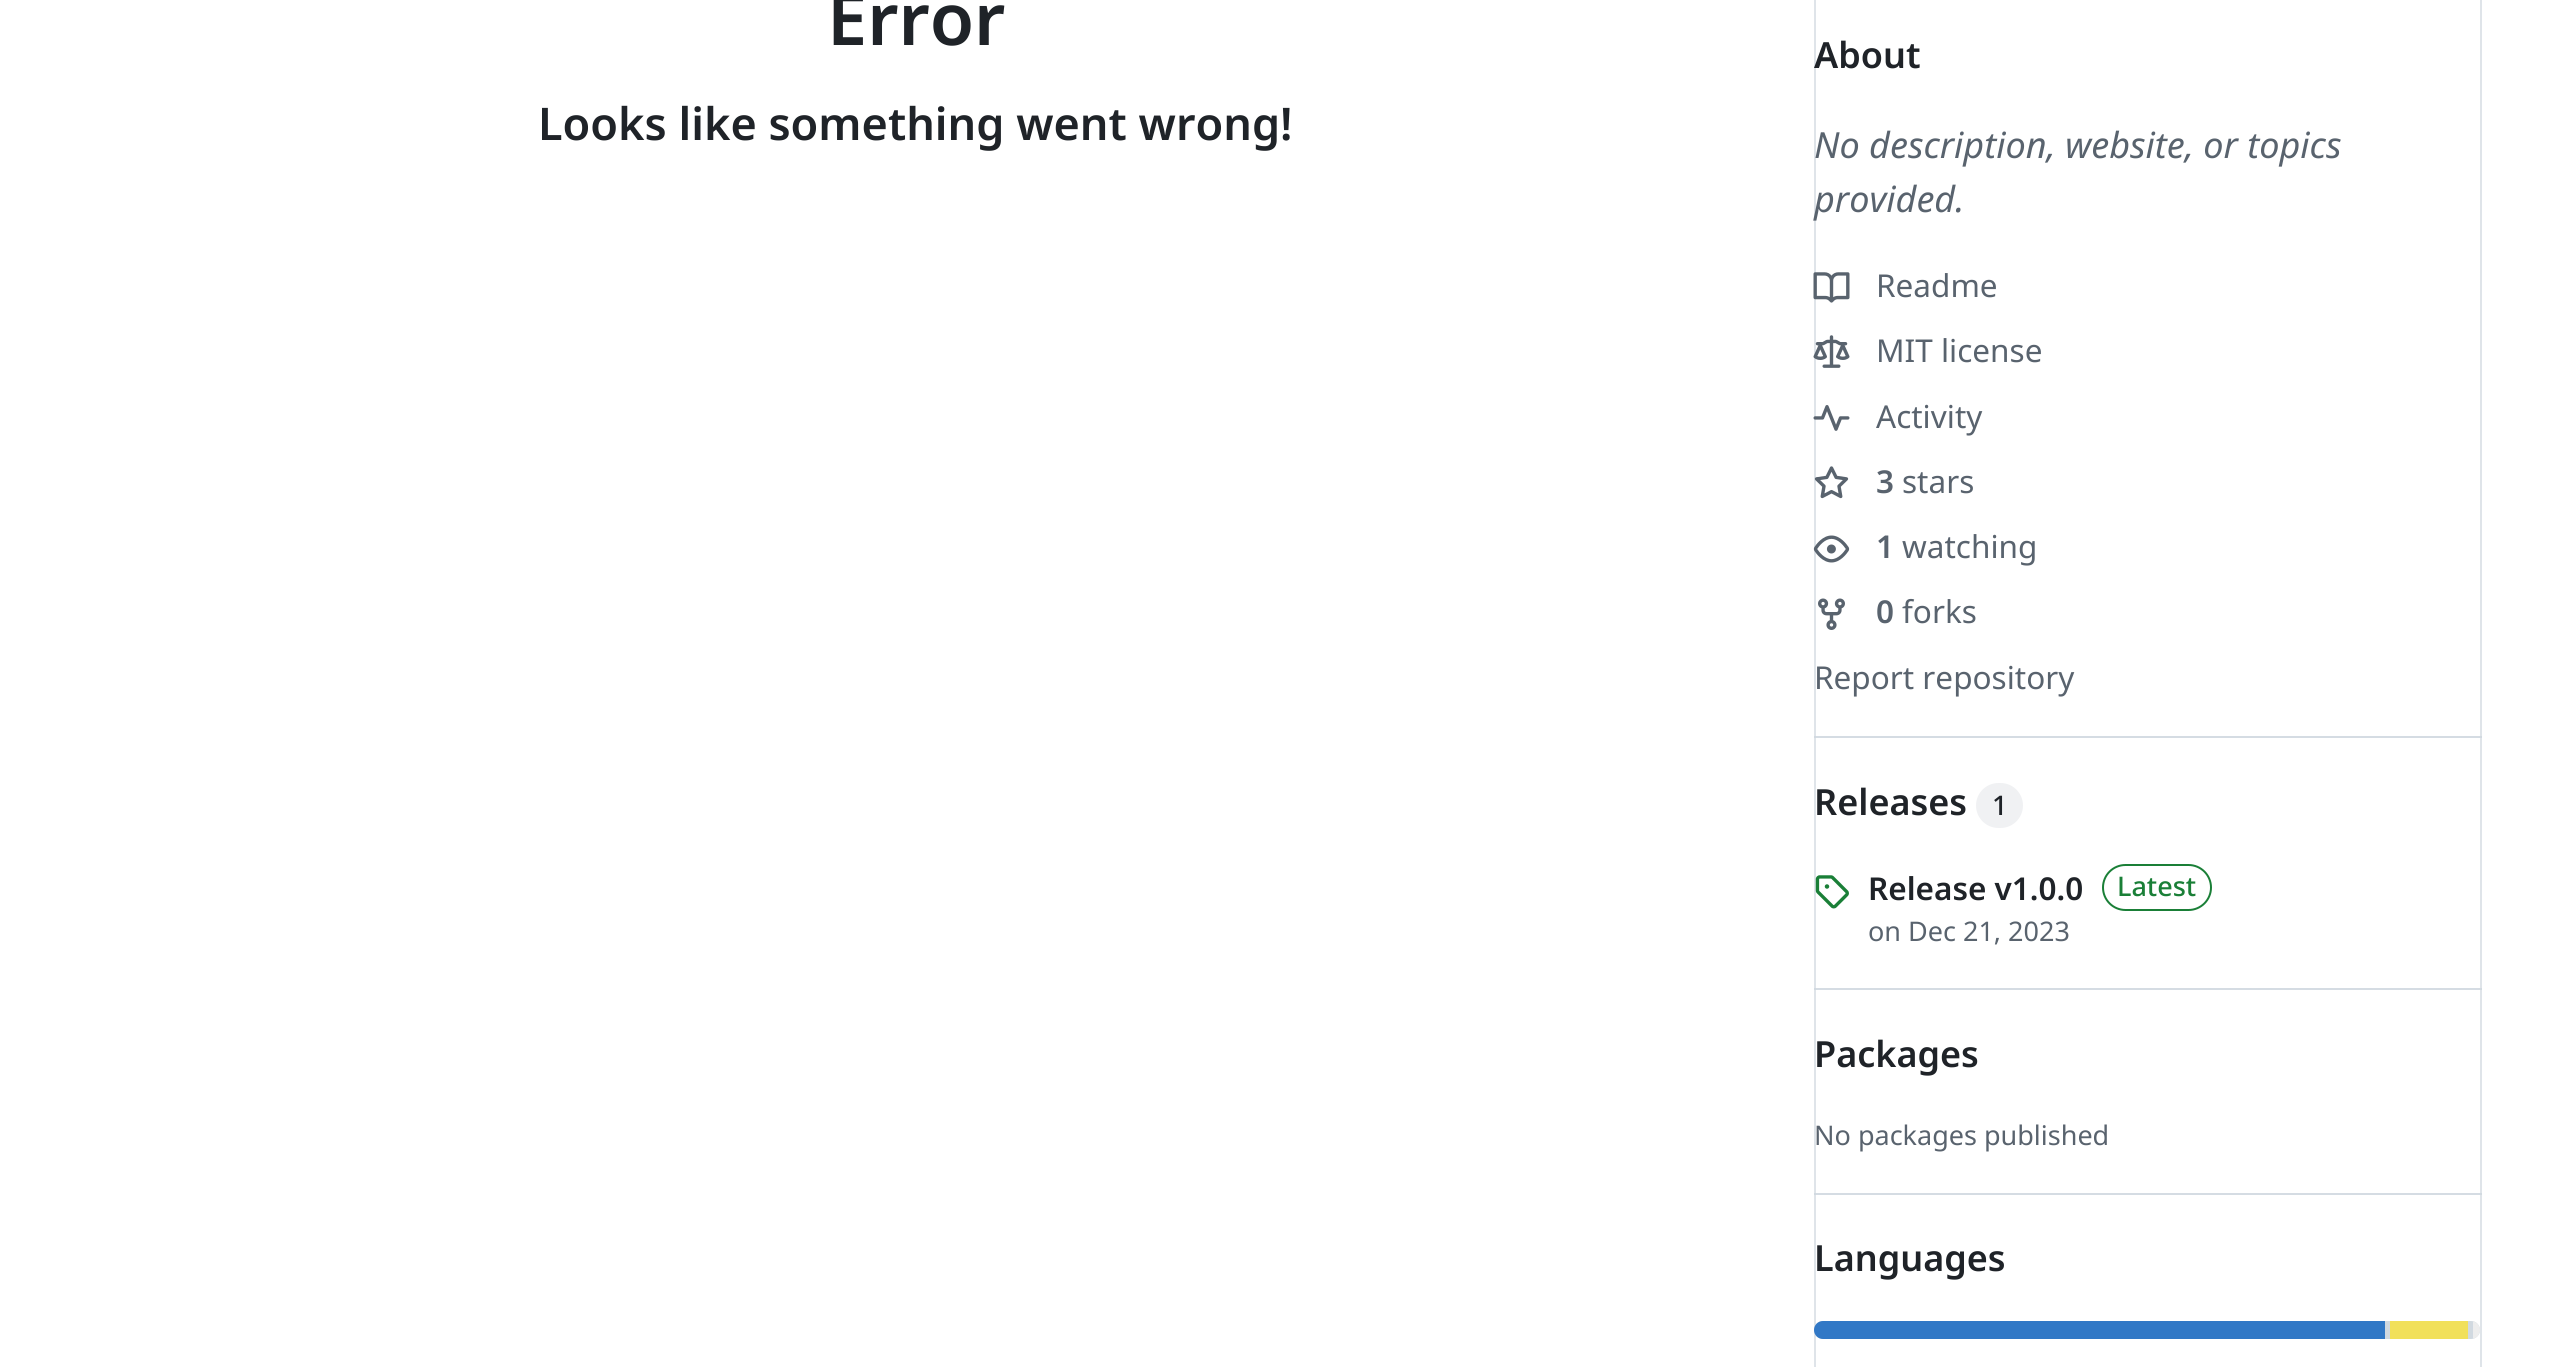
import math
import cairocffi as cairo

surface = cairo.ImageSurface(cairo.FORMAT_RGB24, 2551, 1367)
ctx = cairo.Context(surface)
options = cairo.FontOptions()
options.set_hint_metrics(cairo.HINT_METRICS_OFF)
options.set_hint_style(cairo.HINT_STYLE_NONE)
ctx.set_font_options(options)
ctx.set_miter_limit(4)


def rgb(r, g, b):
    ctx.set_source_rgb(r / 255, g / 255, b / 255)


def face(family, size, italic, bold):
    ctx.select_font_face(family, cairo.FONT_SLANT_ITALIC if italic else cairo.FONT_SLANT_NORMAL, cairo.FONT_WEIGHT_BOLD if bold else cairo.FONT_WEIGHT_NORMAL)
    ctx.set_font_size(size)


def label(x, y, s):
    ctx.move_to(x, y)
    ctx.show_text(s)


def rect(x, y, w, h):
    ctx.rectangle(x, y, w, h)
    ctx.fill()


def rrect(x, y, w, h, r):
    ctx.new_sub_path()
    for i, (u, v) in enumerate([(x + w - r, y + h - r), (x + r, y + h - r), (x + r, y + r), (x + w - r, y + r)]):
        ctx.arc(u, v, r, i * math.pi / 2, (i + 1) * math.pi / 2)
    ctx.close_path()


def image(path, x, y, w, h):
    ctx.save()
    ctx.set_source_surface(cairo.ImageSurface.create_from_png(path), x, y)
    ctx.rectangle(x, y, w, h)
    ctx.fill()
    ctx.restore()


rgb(255, 255, 255)
ctx.paint()
rgb(223, 228, 233)
rect(1814, 0, 2, 1367)
rect(2480, 0, 2, 1367)
face('Noto Sans SemiBold', 72, 0, 0)
rgb(31, 35, 40)
label(827, 45, 'Error')
face('Noto Sans SemiBold', 45, 0, 0)
label(538, 140, 'Looks like something went wrong!')
face('Noto Sans SemiBold', 36, 0, 0)
label(1814, 68, 'About')
face('Noto Sans', 36, 1, 0)
rgb(89, 99, 110)
label(1814, 158, 'No description, website, or topics')
label(1814, 212, 'provided.')
image('image0.png', 1813, 272, 37, 31)
face('Noto Sans', 31.5, 0, 0)
label(1876, 297, 'Readme')
image('image1.png', 1813, 335, 37, 33)
label(1876, 362, 'MIT license')
image('image2.png', 1813, 405, 37, 26)
label(1876, 428, 'Activity')
image('image3.png', 1814, 466, 35, 33)
face('Noto Sans SemiBold', 31.5, 0, 0)
label(1876, 493, '3')
face('Noto Sans', 31.5, 0, 0)
label(1902, 493, 'stars')
image('image4.png', 1813, 535, 37, 28)
face('Noto Sans SemiBold', 31.5, 0, 0)
label(1876, 558, '1')
face('Noto Sans', 31.5, 0, 0)
label(1902, 558, 'watching')
image('image5.png', 1818, 598, 27, 32)
face('Noto Sans SemiBold', 31.5, 0, 0)
label(1876, 623, '0')
face('Noto Sans', 31.5, 0, 0)
label(1902, 623, 'forks')
label(1814, 689, 'Report repository')
rgb(213, 220, 227)
rect(1814, 736, 668, 2)
rgb(209, 217, 224)
rect(1814, 736, 2, 2)
rect(2480, 736, 2, 2)
face('Noto Sans SemiBold', 36, 0, 0)
rgb(31, 35, 40)
label(1814, 815, 'Releases')
rgb(240, 241, 243)
rrect(1976, 783, 47, 45, 22.5)
ctx.fill()
face('Noto Sans Medium', 27, 0, 0)
rgb(31, 35, 40)
label(1992, 815, '1')
image('image6.png', 1815, 875, 34, 34)
face('Noto Sans SemiBold', 31.5, 0, 0)
label(1868, 900, 'Release v1.0.0')
rrect(2103, 865, 108, 45, 22.5)
rgb(26, 127, 55)
ctx.stroke()
face('Noto Sans Medium', 27, 0, 0)
label(2117, 896, 'Latest')
face('Noto Sans', 27, 0, 0)
rgb(89, 99, 110)
label(1868, 941, 'on Dec 21, 2023')
rgb(213, 220, 227)
rect(1814, 988, 668, 2)
rgb(209, 217, 224)
rect(1814, 988, 2, 2)
rect(2480, 988, 2, 2)
face('Noto Sans SemiBold', 36, 0, 0)
rgb(31, 35, 40)
label(1814, 1067, 'Packages')
face('Noto Sans', 27, 0, 0)
rgb(89, 99, 110)
label(1814, 1145, 'No packages published')
rgb(213, 220, 227)
rect(1814, 1193, 668, 2)
rgb(209, 217, 224)
rect(1814, 1193, 2, 2)
rect(2480, 1193, 2, 2)
face('Noto Sans SemiBold', 36, 0, 0)
rgb(31, 35, 40)
label(1814, 1271, 'Languages')
rgb(209, 217, 224)
rrect(1814, 1321, 666, 18, 9)
ctx.fill()
rgb(49, 120, 198)
ctx.new_path()
ctx.move_to(1823, 1321)
ctx.line_to(2385, 1321)
ctx.line_to(2385, 1339)
ctx.line_to(1823, 1339)
ctx.curve_to(1818, 1339, 1814, 1335, 1814, 1330)
ctx.curve_to(1814, 1325, 1818, 1321, 1823, 1321)
ctx.close_path()
ctx.fill()
rgb(241, 224, 90)
rect(2390, 1321, 78, 18)
ctx.save()
rrect(1814, 1321, 666, 18, 9)
ctx.clip()
rgb(237, 237, 237)
rect(2473, 1321, 7, 18)
ctx.restore()
surface.write_to_png('render.png')
